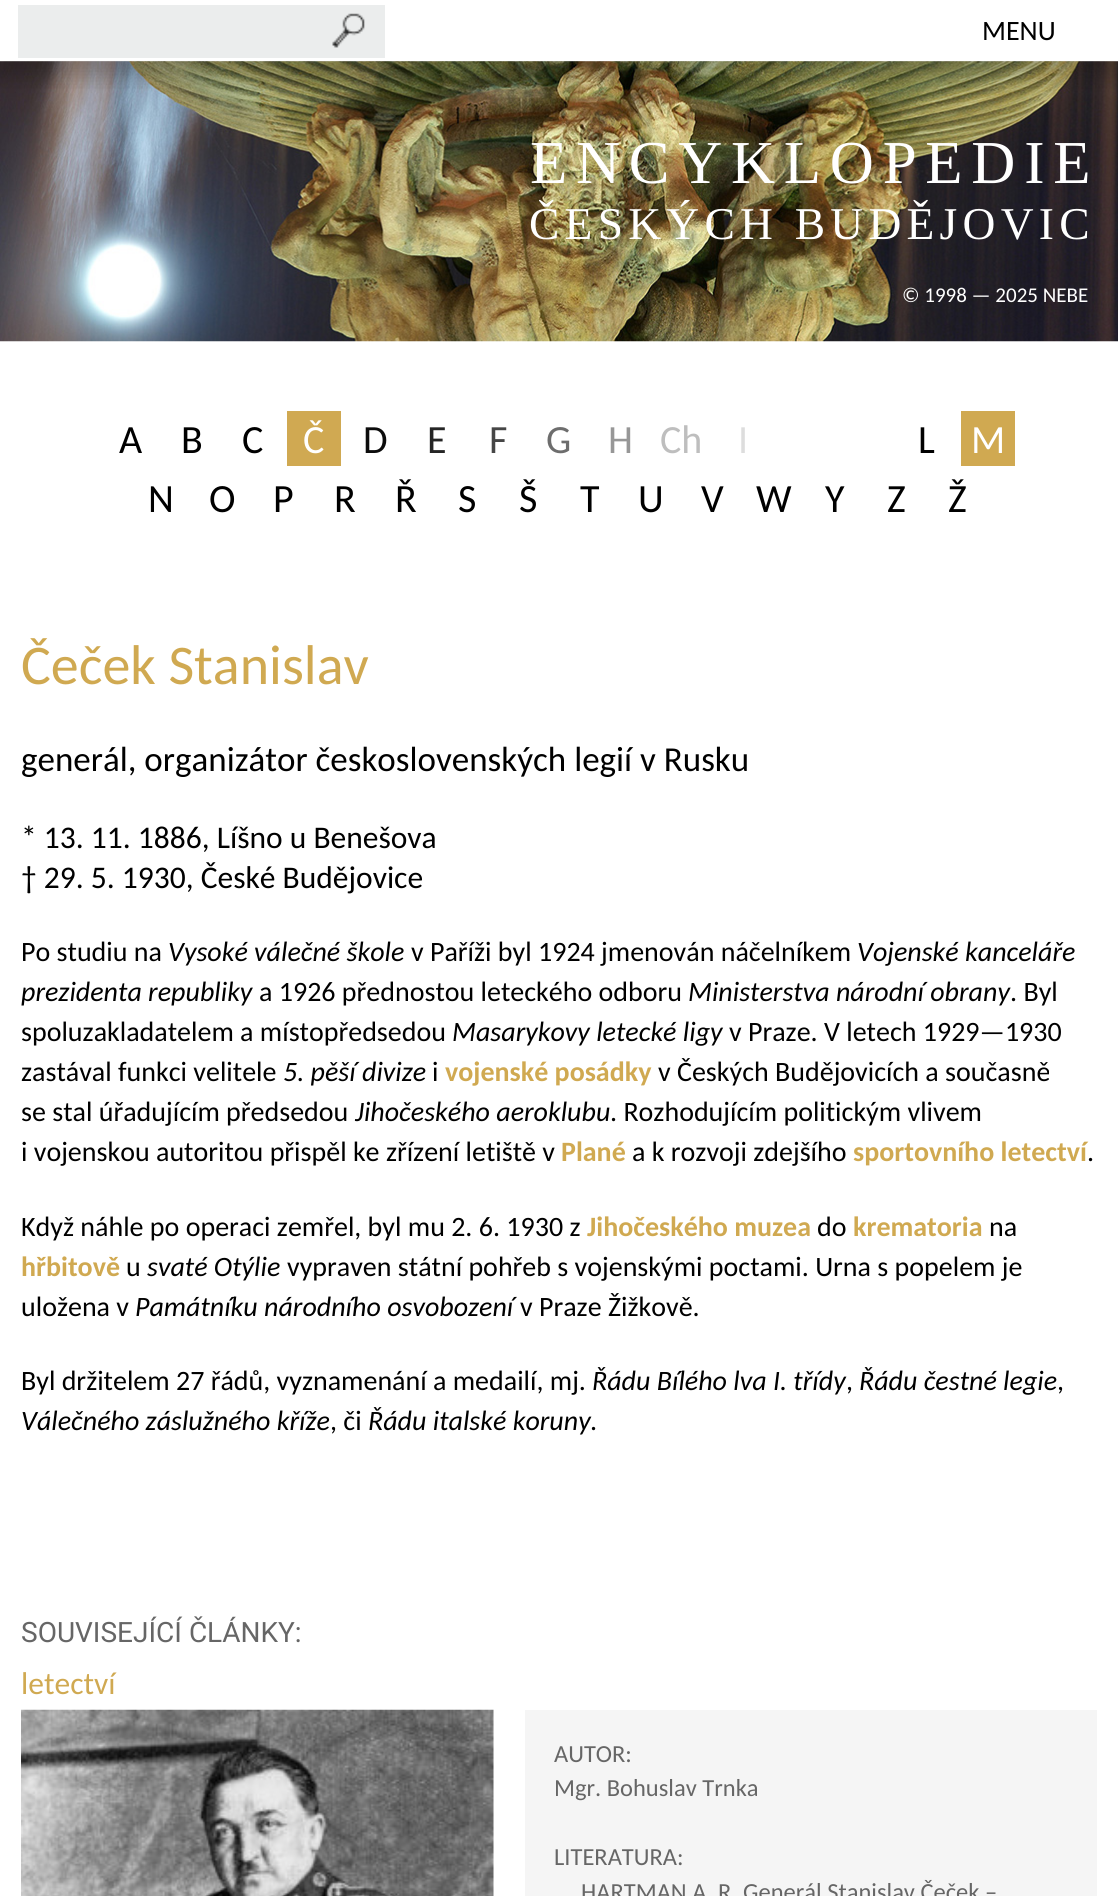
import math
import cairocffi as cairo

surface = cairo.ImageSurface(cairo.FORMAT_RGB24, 1118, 1896)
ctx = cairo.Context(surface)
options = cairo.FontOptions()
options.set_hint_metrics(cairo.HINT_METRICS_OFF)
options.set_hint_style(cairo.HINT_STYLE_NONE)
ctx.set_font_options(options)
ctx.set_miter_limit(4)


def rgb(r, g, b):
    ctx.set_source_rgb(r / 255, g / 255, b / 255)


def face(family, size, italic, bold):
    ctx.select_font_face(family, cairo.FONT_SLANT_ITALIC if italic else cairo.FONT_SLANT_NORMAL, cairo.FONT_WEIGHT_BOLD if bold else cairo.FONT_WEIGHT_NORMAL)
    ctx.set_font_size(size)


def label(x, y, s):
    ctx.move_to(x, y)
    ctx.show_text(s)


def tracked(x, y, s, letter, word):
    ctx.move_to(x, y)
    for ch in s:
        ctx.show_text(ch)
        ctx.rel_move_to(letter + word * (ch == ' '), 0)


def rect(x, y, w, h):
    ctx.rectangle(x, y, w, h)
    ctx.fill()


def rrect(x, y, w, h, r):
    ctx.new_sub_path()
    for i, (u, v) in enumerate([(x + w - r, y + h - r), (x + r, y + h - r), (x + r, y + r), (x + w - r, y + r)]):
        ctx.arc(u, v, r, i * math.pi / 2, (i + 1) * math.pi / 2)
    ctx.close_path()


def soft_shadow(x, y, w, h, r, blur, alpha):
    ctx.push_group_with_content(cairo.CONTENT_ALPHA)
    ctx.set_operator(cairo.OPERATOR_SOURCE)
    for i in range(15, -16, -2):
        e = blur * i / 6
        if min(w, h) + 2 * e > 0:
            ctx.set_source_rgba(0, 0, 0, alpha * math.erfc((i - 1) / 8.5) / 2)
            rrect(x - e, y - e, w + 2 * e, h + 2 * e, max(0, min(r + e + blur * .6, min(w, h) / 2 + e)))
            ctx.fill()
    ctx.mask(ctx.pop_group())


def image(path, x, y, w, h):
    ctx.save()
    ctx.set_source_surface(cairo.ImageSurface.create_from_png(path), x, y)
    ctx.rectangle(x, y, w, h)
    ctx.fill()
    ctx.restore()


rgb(255, 255, 255)
ctx.paint()
image('image1.png', 0, 61, 1118, 281)
ctx.save()
ctx.rectangle(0, 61, 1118, 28)
ctx.clip()
rgb(0, 0, 0)
soft_shadow(-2, 12, 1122, 65, 0, 9.5, 0.2)
ctx.restore()
face('Carlito', 28, 0, 0)
rgb(0, 0, 0)
label(982, 40, 'MENU')
rgb(235, 237, 237)
rect(18, 5, 367, 53)
image('image0.png', 332, 13, 33, 35)
face('Liberation Serif', 61, 0, 0)
rgb(255, 255, 255)
tracked(530, 183, 'ENCYKLOPEDIE', 8.75, 0)
face('Liberation Serif', 45.5, 0, 0)
tracked(529, 239, 'ČESKÝCH BUDĚJOVIC', 5.25, 0)
face('Carlito', 21, 0, 0)
label(902, 302, '© 1998 — 2025 NEBE')
face('Carlito', 40, 0, 0)
rgb(0, 0, 0)
label(119, 453, 'A')
label(181, 453, 'B')
label(242, 453, 'C')
rgb(208, 169, 82)
rect(287, 411, 54, 55)
rgb(255, 255, 255)
label(303, 453, 'Č')
rgb(12, 12, 12)
label(363, 453, 'D')
rgb(37, 37, 37)
label(427, 453, 'E')
rgb(70, 70, 70)
label(489, 453, 'F')
rgb(109, 109, 109)
label(546, 453, 'G')
rgb(151, 151, 151)
label(608, 453, 'H')
rgb(190, 190, 190)
label(660, 453, 'Ch')
rgb(221, 221, 221)
label(738, 453, 'I')
rgb(0, 0, 0)
label(918, 453, 'L')
rgb(208, 169, 81)
rect(961, 411, 54, 55)
rgb(255, 255, 255)
label(971, 453, 'M')
rgb(0, 0, 0)
label(148, 512, 'N')
label(209, 512, 'O')
label(273, 512, 'P')
label(334, 512, 'R')
label(395, 512, 'Ř')
label(458, 512, 'S')
label(519, 512, 'Š')
label(580, 512, 'T')
label(638, 512, 'U')
label(701, 512, 'V')
label(756, 512, 'W')
label(825, 512, 'Y')
label(887, 512, 'Z')
label(948, 512, 'Ž')
face('Carlito', 56, 0, 0)
rgb(208, 169, 81)
label(21, 684, 'Čeček Stanislav')
face('Carlito', 35, 0, 0)
rgb(0, 0, 0)
label(21, 771, 'generál, organizátor československých legií v Rusku')
face('Carlito', 31.5, 0, 0)
label(21, 848, '* 13. 11. 1886, Líšno u Benešova')
label(21, 888, '† 29. 5. 1930, České Budějovice')
face('Carlito', 28, 0, 0)
label(21, 961, 'Po studiu na')
face('Carlito', 28, 1, 0)
label(168, 961, 'Vysoké válečné škole')
face('Carlito', 28, 0, 0)
label(411, 961, 'v Paříži byl 1924 jmenován náčelníkem')
face('Carlito', 28, 1, 0)
label(857, 961, 'Vojenské kanceláře')
label(21, 1001, 'prezidenta republiky')
face('Carlito', 28, 0, 0)
label(259, 1001, 'a 1926 přednostou leteckého odboru')
face('Carlito', 28, 1, 0)
label(688, 1001, 'Ministerstva národní obrany')
face('Carlito', 28, 0, 0)
label(1010, 1001, '. Byl')
label(21, 1041, 'spoluzakladatelem a místopředsedou')
face('Carlito', 28, 1, 0)
label(452, 1041, 'Masarykovy letecké ligy')
face('Carlito', 28, 0, 0)
label(729, 1041, 'v Praze. V letech 1929—1930')
label(21, 1081, 'zastával funkci velitele')
face('Carlito', 28, 1, 0)
label(283, 1081, '5. pěší divize')
face('Carlito', 28, 0, 0)
label(432, 1081, 'i')
face('Carlito', 28, 0, 1)
rgb(208, 169, 81)
label(445, 1081, 'vojenské posádky')
face('Carlito', 28, 0, 0)
rgb(0, 0, 0)
label(658, 1081, 'v Českých Budějovicích a současně')
label(21, 1121, 'se stal úřadujícím předsedou')
face('Carlito', 28, 1, 0)
label(355, 1121, 'Jihočeského aeroklubu')
face('Carlito', 28, 0, 0)
label(610, 1121, '. Rozhodujícím politickým vlivem')
label(21, 1161, 'i vojenskou autoritou přispěl ke zřízení letiště v')
face('Carlito', 28, 0, 1)
rgb(208, 169, 81)
label(561, 1161, 'Plané')
face('Carlito', 28, 0, 0)
rgb(0, 0, 0)
label(632, 1161, 'a k rozvoji zdejšího')
face('Carlito', 28, 0, 1)
rgb(208, 169, 81)
label(853, 1161, 'sportovního letectví')
face('Carlito', 28, 0, 0)
rgb(0, 0, 0)
label(1087, 1161, '.')
label(21, 1236, 'Když náhle po operaci zemřel, byl mu 2. 6. 1930 z')
face('Carlito', 28, 0, 1)
rgb(208, 169, 81)
label(587, 1236, 'Jihočeského muzea')
face('Carlito', 28, 0, 0)
rgb(0, 0, 0)
label(817, 1236, 'do')
face('Carlito', 28, 0, 1)
rgb(208, 169, 81)
label(853, 1236, 'krematoria')
face('Carlito', 28, 0, 0)
rgb(0, 0, 0)
label(989, 1236, 'na')
face('Carlito', 28, 0, 1)
rgb(208, 169, 81)
label(21, 1276, 'hřbitově')
face('Carlito', 28, 0, 0)
rgb(0, 0, 0)
label(126, 1276, 'u')
face('Carlito', 28, 1, 0)
label(147, 1276, 'svaté Otýlie')
face('Carlito', 28, 0, 0)
label(287, 1276, 'vypraven státní pohřeb s vojenskými poctami. Urna s popelem je')
label(21, 1316, 'uložena v')
face('Carlito', 28, 1, 0)
label(135, 1316, 'Památníku národního osvobození')
face('Carlito', 28, 0, 0)
label(520, 1316, 'v Praze Žižkově.')
label(21, 1390, 'Byl držitelem 27 řádů, vyznamenání a medailí, mj.')
face('Carlito', 28, 1, 0)
label(592, 1390, 'Řádu Bílého lva I. třídy')
face('Carlito', 28, 0, 0)
label(846, 1390, ',')
face('Carlito', 28, 1, 0)
label(859, 1390, 'Řádu čestné legie')
face('Carlito', 28, 0, 0)
label(1057, 1390, ',')
face('Carlito', 28, 1, 0)
label(21, 1430, 'Válečného záslužného kříže')
face('Carlito', 28, 0, 0)
label(330, 1430, ', či')
face('Carlito', 28, 1, 0)
label(368, 1430, 'Řádu italské koruny')
face('Carlito', 28, 0, 0)
label(590, 1430, '.')
face('Roboto', 28, 0, 0)
rgb(102, 102, 102)
label(21, 1642, 'SOUVISEJÍCÍ ČLÁNKY:')
face('Carlito', 31.5, 0, 0)
rgb(208, 169, 81)
label(21, 1694, 'letectví')
image('image2.png', 21, 1709, 473, 187)
rgb(245, 245, 245)
rect(525, 1710, 572, 186)
face('Carlito', 24.5, 0, 0)
rgb(102, 102, 102)
label(554, 1762, 'AUTOR:')
label(554, 1796, 'Mgr. Bohuslav Trnka')
label(554, 1865, 'LITERATURA:')
label(581, 1900, 'HARTMAN A. R. Generál Stanislav Čeček –')
surface.write_to_png('render.png')
